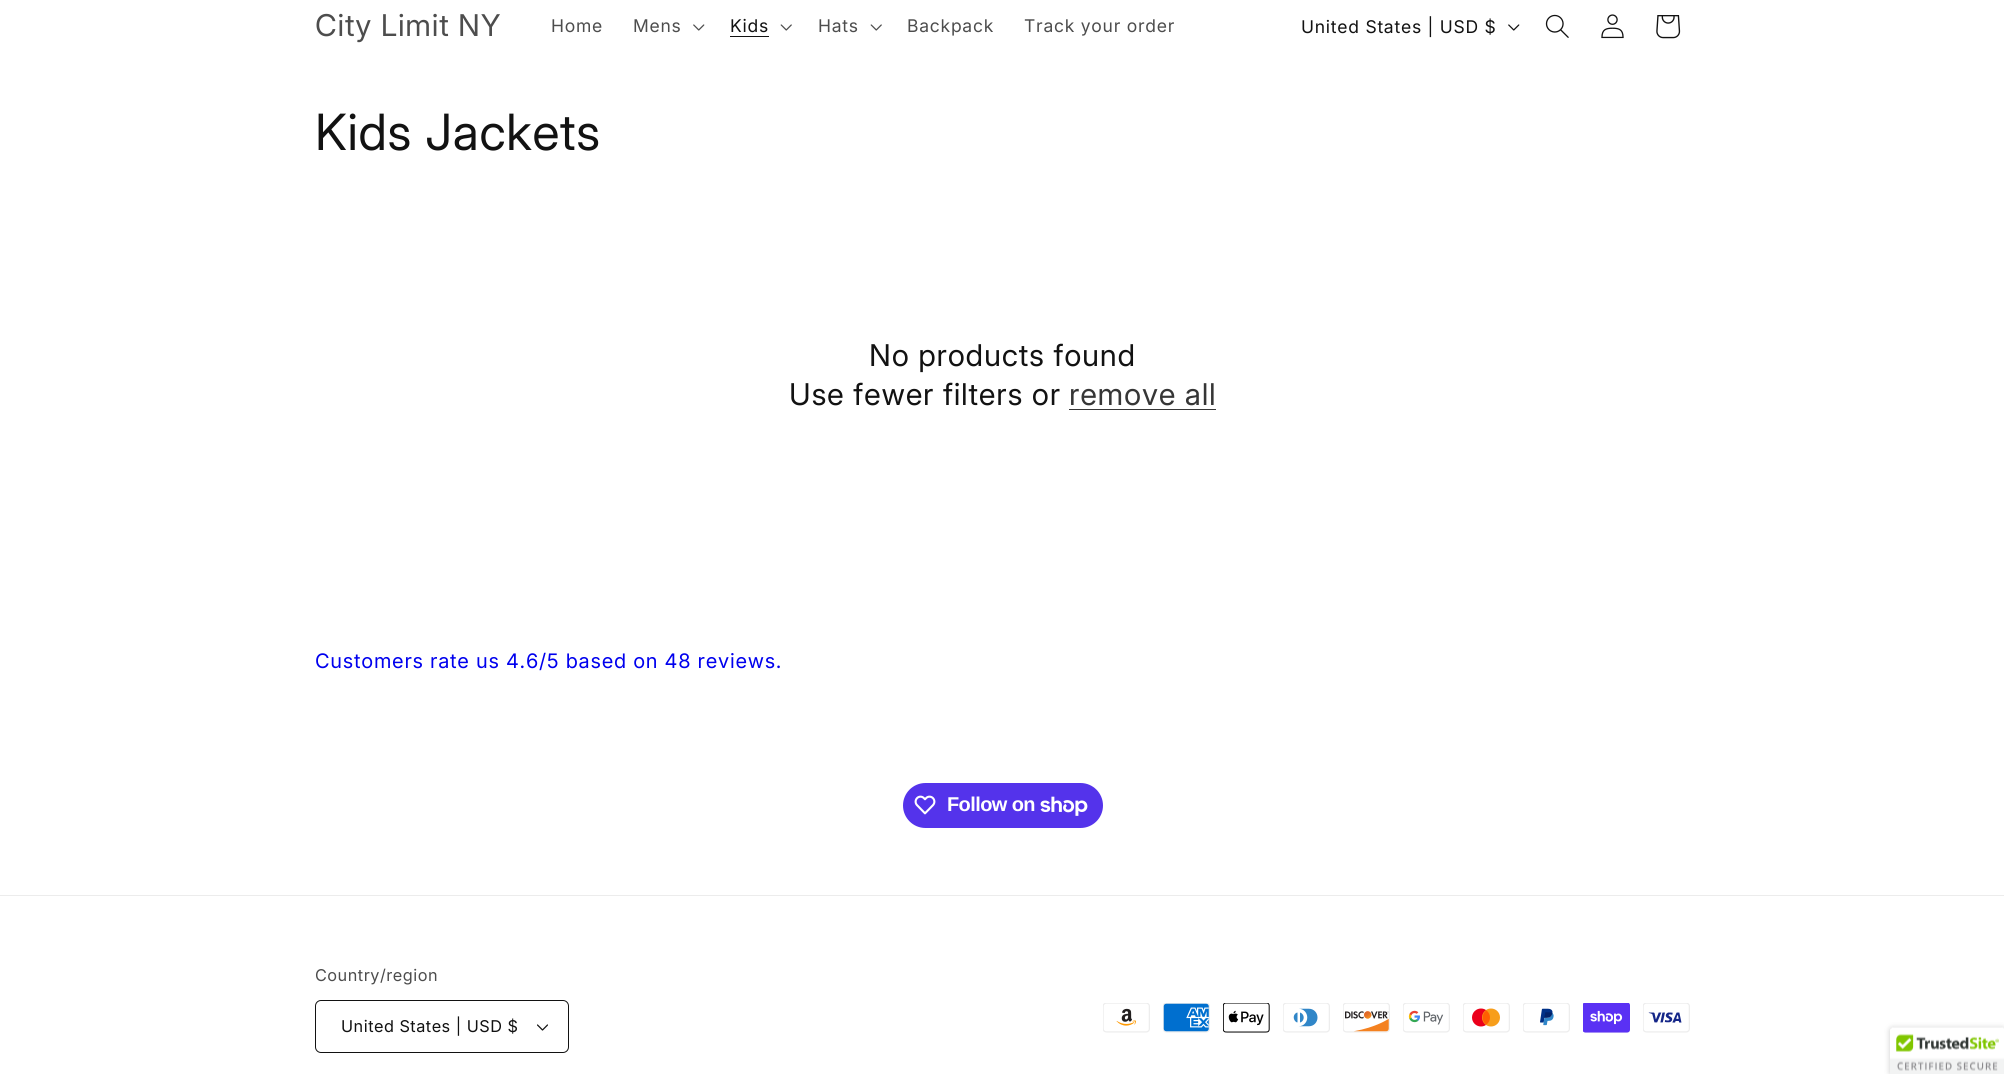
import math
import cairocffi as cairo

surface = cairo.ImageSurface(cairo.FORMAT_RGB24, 2004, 1074)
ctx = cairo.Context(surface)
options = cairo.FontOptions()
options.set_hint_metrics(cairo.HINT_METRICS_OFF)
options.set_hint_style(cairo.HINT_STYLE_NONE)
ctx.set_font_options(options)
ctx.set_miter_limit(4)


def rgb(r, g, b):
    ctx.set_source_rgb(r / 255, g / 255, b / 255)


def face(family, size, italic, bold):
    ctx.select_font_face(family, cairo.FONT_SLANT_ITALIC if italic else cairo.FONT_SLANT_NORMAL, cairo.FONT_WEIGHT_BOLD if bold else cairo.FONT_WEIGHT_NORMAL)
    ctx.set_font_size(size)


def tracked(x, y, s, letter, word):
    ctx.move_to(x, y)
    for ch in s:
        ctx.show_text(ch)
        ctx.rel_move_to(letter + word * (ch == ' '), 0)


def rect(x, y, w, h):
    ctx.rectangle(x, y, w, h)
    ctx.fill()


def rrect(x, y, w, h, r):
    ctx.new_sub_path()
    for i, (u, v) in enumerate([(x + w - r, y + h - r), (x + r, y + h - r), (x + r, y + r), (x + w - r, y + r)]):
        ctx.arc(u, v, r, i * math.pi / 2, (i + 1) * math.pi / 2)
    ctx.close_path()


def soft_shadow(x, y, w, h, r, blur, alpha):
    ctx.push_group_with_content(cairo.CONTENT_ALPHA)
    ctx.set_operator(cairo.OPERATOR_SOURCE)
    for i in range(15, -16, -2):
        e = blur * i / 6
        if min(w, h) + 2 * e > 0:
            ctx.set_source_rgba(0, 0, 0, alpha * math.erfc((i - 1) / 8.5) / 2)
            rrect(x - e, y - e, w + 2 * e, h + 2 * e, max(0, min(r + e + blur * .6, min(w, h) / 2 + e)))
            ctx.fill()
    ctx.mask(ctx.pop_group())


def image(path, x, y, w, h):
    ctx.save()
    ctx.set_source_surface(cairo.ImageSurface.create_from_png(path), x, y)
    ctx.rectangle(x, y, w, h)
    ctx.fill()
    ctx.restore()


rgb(255, 255, 255)
ctx.paint()
face('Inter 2', 30, 0, 0)
rgb(77, 77, 77)
tracked(315, 36, 'City Limit NY', 0.75, 0)
face('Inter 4', 17.5, 0, 0)
tracked(551, 32, 'Home', 0.75, 0)
tracked(633, 32, 'Mens', 0.75, 0)
image('image0.png', 693, 24, 12, 7)
rgb(18, 18, 18)
tracked(730, 32, 'Kids', 0.75, 0)
rect(730, 36, 39, 1)
image('image1.png', 780, 24, 12, 7)
rgb(77, 77, 77)
tracked(818, 32, 'Hats', 0.75, 0)
image('image1.png', 870, 24, 12, 7)
tracked(907, 32, 'Backpack', 0.75, 0)
tracked(1024, 32, 'Track your order', 0.75, 0)
rgb(18, 18, 18)
tracked(1301, 33, 'United States | USD $', 0.75, 0)
image('image2.png', 1508, 24, 12, 7)
image('image3.png', 1545, 14, 24, 24)
image('image4.png', 1601, 14, 23, 25)
image('image5.png', 1656, 15, 25, 24)
face('Inter', 50, 0, 0)
tracked(315, 150, 'Kids Jackets', 0.75, 0)
face('Inter 2', 30, 0, 0)
tracked(869, 366, 'No products found', 0.75, 0)
tracked(789, 405, 'Use fewer filters or', 0.75, 0)
rgb(54, 54, 54)
tracked(1069, 405, 'remove all', 0.75, 0)
rect(1069, 409, 147, 1)
face('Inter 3', 20, 0, 0)
rgb(0, 0, 238)
tracked(315, 668, 'Customers rate us 4.6/5 based on 48 reviews.', 0.75, 0)
rgb(84, 51, 235)
rrect(903, 783, 200, 45, 22.5)
ctx.fill()
image('image6.png', 914, 795, 22, 20)
face('Liberation Sans', 20, 0, 1)
rgb(255, 255, 255)
tracked(947, 811, 'Follow on', -0.6, 0)
image('image7.png', 1040, 796, 48, 20)
rgb(236, 236, 236)
rect(0, 895, 2004, 1)
face('Inter 4', 16.25, 0, 0)
rgb(77, 77, 77)
tracked(315, 981, 'Country/region', 0.5, 0)
image('image8.png', 537, 1024, 11, 7)
rrect(315.5, 1000.5, 253, 52, 5.5)
rgb(18, 18, 18)
ctx.set_line_width(1)
ctx.stroke()
tracked(341, 1032, 'United States | USD $', 0.5, 0)
image('image9.png', 1103, 1003, 47, 30)
image('image10.png', 1163, 1003, 47, 30)
image('image11.png', 1223, 1003, 47, 30)
image('image12.png', 1283, 1003, 47, 30)
image('image13.png', 1343, 1003, 47, 30)
image('image14.png', 1403, 1003, 47, 30)
image('image15.png', 1463, 1003, 47, 30)
image('image16.png', 1523, 1003, 47, 30)
image('image17.png', 1583, 1003, 47, 30)
image('image18.png', 1643, 1003, 47, 30)
rgb(0, 0, 0)
soft_shadow(1890, 1028, 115, 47, 2.5, 3, 0.2)
image('image19.png', 1890, 1027, 114, 47)
surface.write_to_png('render.png')
